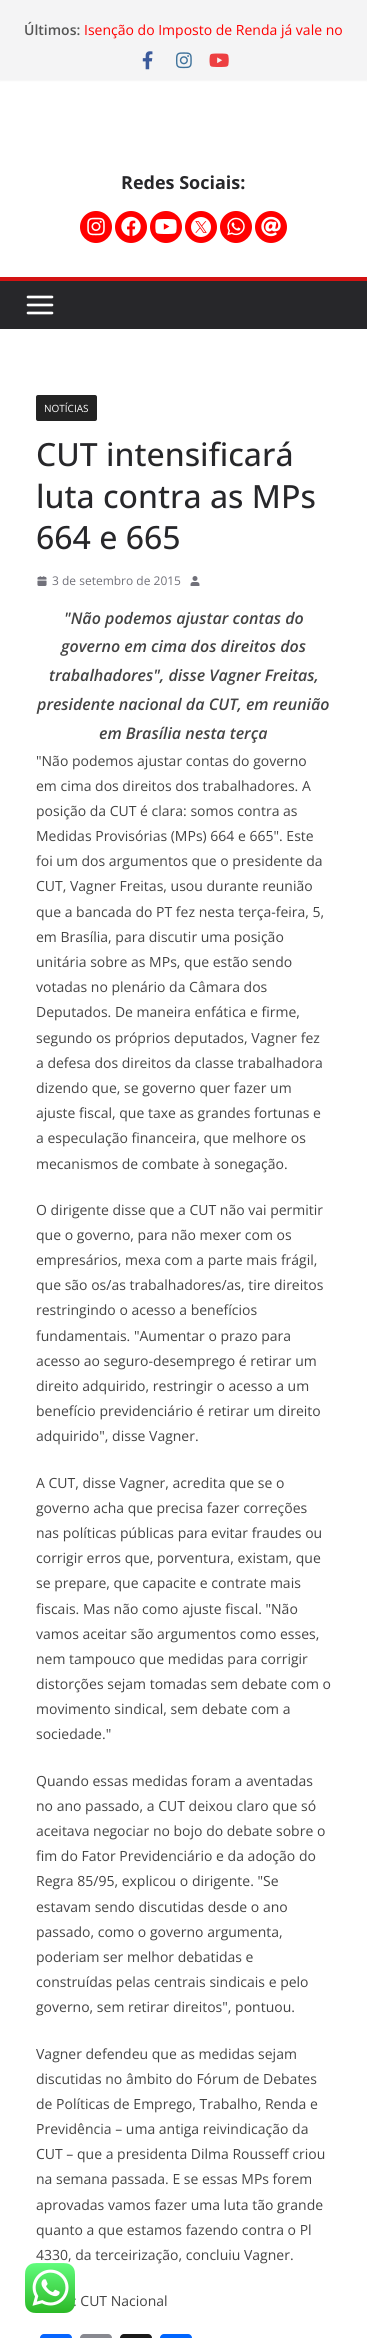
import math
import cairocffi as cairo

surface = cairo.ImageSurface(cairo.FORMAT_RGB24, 367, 2338)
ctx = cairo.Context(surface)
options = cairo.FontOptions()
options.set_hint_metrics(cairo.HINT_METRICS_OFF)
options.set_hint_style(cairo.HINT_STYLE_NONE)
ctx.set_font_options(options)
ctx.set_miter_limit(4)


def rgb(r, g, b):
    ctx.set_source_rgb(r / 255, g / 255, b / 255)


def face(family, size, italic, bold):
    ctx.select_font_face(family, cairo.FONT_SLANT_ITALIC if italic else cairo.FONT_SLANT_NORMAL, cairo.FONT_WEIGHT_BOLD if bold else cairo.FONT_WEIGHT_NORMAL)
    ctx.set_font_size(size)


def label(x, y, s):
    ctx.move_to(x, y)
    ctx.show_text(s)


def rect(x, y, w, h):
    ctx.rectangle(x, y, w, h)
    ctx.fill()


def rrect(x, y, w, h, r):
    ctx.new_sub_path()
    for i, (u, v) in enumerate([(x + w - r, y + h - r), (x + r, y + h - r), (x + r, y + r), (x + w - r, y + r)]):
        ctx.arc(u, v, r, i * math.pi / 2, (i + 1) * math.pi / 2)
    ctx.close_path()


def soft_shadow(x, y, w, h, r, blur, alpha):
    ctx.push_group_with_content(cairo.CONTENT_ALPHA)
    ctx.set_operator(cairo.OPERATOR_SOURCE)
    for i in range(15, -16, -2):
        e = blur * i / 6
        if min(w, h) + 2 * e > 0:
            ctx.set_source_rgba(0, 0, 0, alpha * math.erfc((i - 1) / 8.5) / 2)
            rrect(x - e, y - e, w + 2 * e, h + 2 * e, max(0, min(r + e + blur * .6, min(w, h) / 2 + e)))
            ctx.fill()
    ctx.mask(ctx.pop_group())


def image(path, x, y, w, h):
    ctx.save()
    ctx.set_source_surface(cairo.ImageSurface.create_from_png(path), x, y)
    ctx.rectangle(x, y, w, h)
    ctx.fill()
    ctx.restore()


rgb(255, 255, 255)
ctx.paint()
rgb(0, 0, 0)
soft_shadow(0, 0, 367, 80, 0, 1, 0.1)
rgb(244, 244, 245)
rect(0, 0, 367, 80)
face('Open Sans SemiBold', 14, 0, 0)
rgb(85, 85, 85)
label(24, 35, 'Últimos:')
face('Open Sans', 14, 0, 0)
rgb(255, 0, 0)
label(84, 35, 'Isenção do Imposto de Renda já vale no')
image('image0.png', 142, 51, 11, 19)
image('image1.png', 176, 52, 16, 17)
image('image2.png', 209, 53, 20, 14)
face('Open Sans', 18, 0, 1)
rgb(39, 39, 42)
label(121, 189, 'Redes Sociais:')
rgb(255, 0, 0)
ctx.new_path()
ctx.arc(96, 227, 16, 0, 2 * math.pi)
ctx.fill()
image('image3.png', 87, 217, 18, 19)
ctx.arc(131, 227, 16, 0, 2 * math.pi)
ctx.fill()
image('image4.png', 121, 216, 20, 20)
ctx.arc(166, 227, 16, 0, 2 * math.pi)
ctx.fill()
image('image5.png', 155, 219, 22, 15)
ctx.arc(201, 227, 16, 0, 2 * math.pi)
ctx.fill()
image('image6.png', 191, 217, 20, 20)
ctx.arc(236, 227, 16, 0, 2 * math.pi)
ctx.fill()
image('image7.png', 227, 217, 18, 19)
ctx.arc(271, 227, 16, 0, 2 * math.pi)
ctx.fill()
image('image8.png', 261, 216, 20, 21)
rgb(39, 39, 42)
rect(0, 281, 367, 48)
rgb(212, 19, 19)
rect(0, 277, 367, 4)
image('image9.png', 26, 295, 28, 20)
rgb(35, 35, 35)
rrect(36, 395, 61, 26, 2)
ctx.fill()
face('Open Sans', 10, 0, 0)
rgb(255, 255, 255)
label(44, 412, 'NOTÍCIAS')
face('Open Sans Medium', 32, 0, 0)
rgb(39, 39, 42)
label(36, 466, 'CUT intensificará')
label(36, 508, 'luta contra as MPs')
label(36, 549, '664 e 665')
image('image10.png', 37, 576, 10, 10)
face('Open Sans', 12, 0, 0)
rgb(113, 113, 122)
label(52, 585, '3 de setembro de 2015')
image('image11.png', 190, 576, 10, 10)
face('Open Sans SemiBold', 16, 1, 0)
rgb(68, 68, 68)
label(64, 624, '"Não podemos ajustar contas do')
label(61, 652, 'governo em cima dos direitos dos')
label(49, 681, 'trabalhadores", disse Vagner Freitas,')
label(37, 710, 'presidente nacional da CUT, em reunião')
label(99, 739, 'em Brasília nesta terça')
face('Open Sans', 14, 0, 0)
label(36, 766, '"Não podemos ajustar contas do governo')
label(36, 791, 'em cima dos direitos dos trabalhadores. A')
label(36, 816, 'posição da CUT é clara: somos contra as')
label(36, 841, 'Medidas Provisórias (MPs) 664 e 665". Este')
label(36, 866, 'foi um dos argumentos que o presidente da')
label(36, 891, 'CUT, Vagner Freitas, usou durante reunião')
label(36, 917, 'que a bancada do PT fez nesta terça-feira, 5,')
label(36, 942, 'em Brasília, para discutir uma posição')
label(36, 967, 'unitária sobre as MPs, que estão sendo')
label(36, 992, 'votadas no plenário da Câmara dos')
label(36, 1017, 'Deputados. De maneira enfática e firme,')
label(36, 1043, 'segundo os próprios deputados, Vagner fez')
label(36, 1068, 'a defesa dos direitos da classe trabalhadora')
label(36, 1093, 'dizendo que, se governo quer fazer um')
label(36, 1118, 'ajuste fiscal, que taxe as grandes fortunas e')
label(36, 1143, 'a especulação financeira, que melhore os')
label(36, 1169, 'mecanismos de combate à sonegação.')
label(36, 1215, 'O dirigente disse que a CUT não vai permitir')
label(36, 1240, 'que o governo, para não mexer com os')
label(36, 1265, 'empresários, mexa com a parte mais frágil,')
label(36, 1290, 'que são os/as trabalhadores/as, tire direitos')
label(36, 1315, 'restringindo o acesso a benefícios')
label(36, 1341, 'fundamentais. "Aumentar o prazo para')
label(36, 1366, 'acesso ao seguro-desemprego é retirar um')
label(36, 1391, 'direito adquirido, restringir o acesso a um')
label(36, 1416, 'benefício previdenciário é retirar um direito')
label(36, 1441, 'adquirido", disse Vagner.')
label(36, 1488, 'A CUT, disse Vagner, acredita que se o')
label(36, 1513, 'governo acha que precisa fazer correções')
label(36, 1538, 'nas políticas públicas para evitar fraudes ou')
label(36, 1563, 'corrigir erros que, porventura, existam, que')
label(36, 1588, 'se prepare, que capacite e contrate mais')
label(36, 1614, 'fiscais. Mas não como ajuste fiscal. "Não')
label(36, 1639, 'vamos aceitar são argumentos como esses,')
label(36, 1664, 'nem tampouco que medidas para corrigir')
label(36, 1689, 'distorções sejam tomadas sem debate com o')
label(36, 1714, 'movimento sindical, sem debate com a')
label(36, 1739, 'sociedade."')
label(36, 1786, 'Quando essas medidas foram a aventadas')
label(36, 1811, 'no ano passado, a CUT deixou claro que só')
label(36, 1836, 'aceitava negociar no bojo do debate sobre o')
label(36, 1861, 'fim do Fator Previdenciário e da adoção do')
label(36, 1886, 'Regra 85/95, explicou o dirigente. "Se')
label(36, 1912, 'estavam sendo discutidas desde o ano')
label(36, 1937, 'passado, como o governo argumenta,')
label(36, 1962, 'poderiam ser melhor debatidas e')
label(36, 1987, 'construídas pelas centrais sindicais e pelo')
label(36, 2012, 'governo, sem retirar direitos", pontuou.')
label(36, 2059, 'Vagner defendeu que as medidas sejam')
label(36, 2084, 'discutidas no âmbito do Fórum de Debates')
label(36, 2109, 'de Políticas de Emprego, Trabalho, Renda e')
label(36, 2134, 'Previdência – uma antiga reivindicação da')
label(36, 2159, 'CUT – que a presidenta Dilma Rousseff criou')
label(36, 2184, 'na semana passada. E se essas MPs forem')
label(36, 2210, 'aprovadas vamos fazer uma luta tão grande')
label(36, 2235, 'quanto a que estamos fazendo contra o Pl')
label(36, 2260, '4330, da terceirização, concluiu Vagner.')
label(73, 2306, ': CUT Nacional')
rgb(8, 102, 255)
rrect(40, 2334, 32, 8, 4)
ctx.fill()
rgb(136, 137, 144)
rrect(80, 2334, 32, 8, 4)
ctx.fill()
rgb(26, 26, 26)
rrect(120, 2334, 32, 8, 4)
ctx.fill()
rgb(1, 102, 255)
rrect(160, 2334, 32, 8, 4)
ctx.fill()
image('image12.png', 25, 2263, 50, 50)
surface.write_to_png('render.png')
